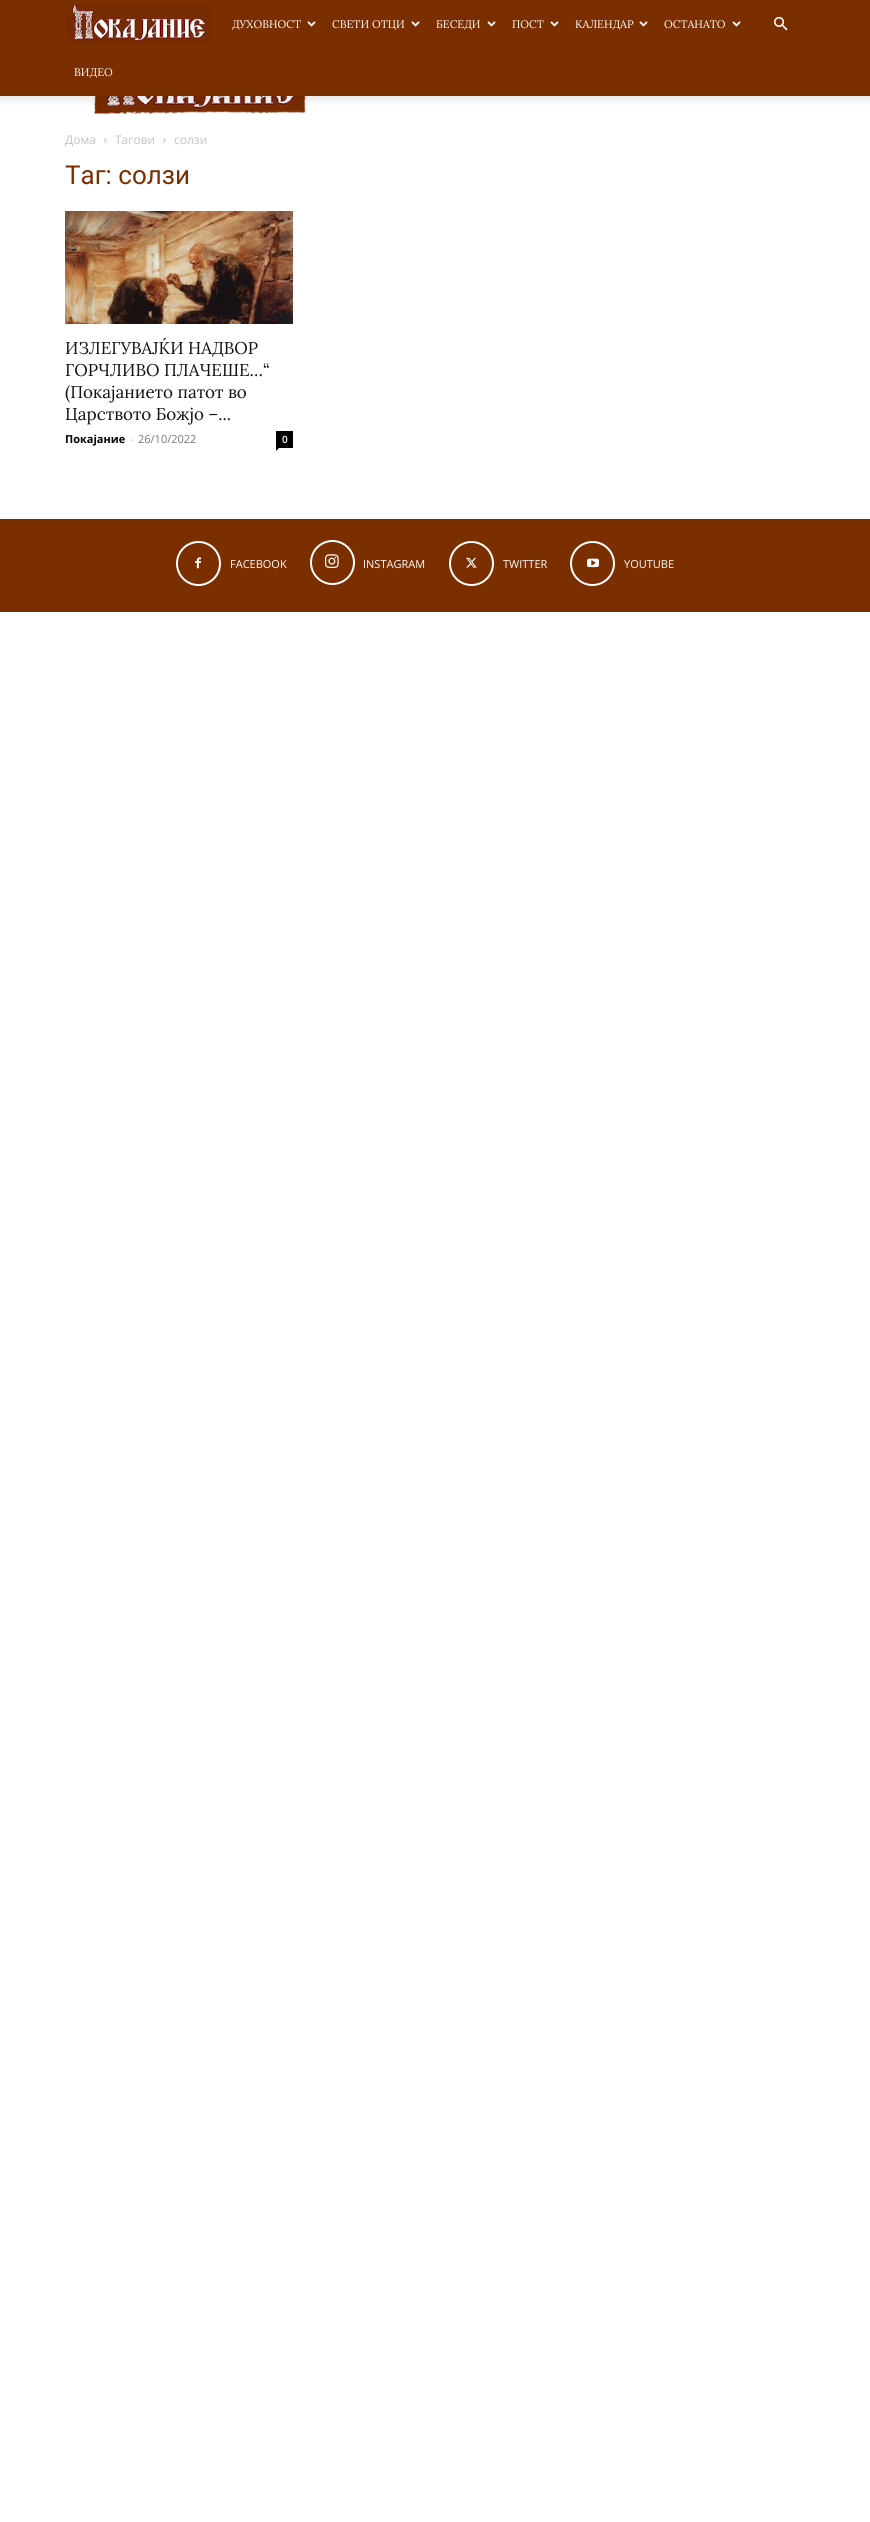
import math
import cairocffi as cairo

surface = cairo.ImageSurface(cairo.FORMAT_RGB24, 870, 2522)
ctx = cairo.Context(surface)
options = cairo.FontOptions()
options.set_hint_metrics(cairo.HINT_METRICS_OFF)
options.set_hint_style(cairo.HINT_STYLE_NONE)
ctx.set_font_options(options)
ctx.set_miter_limit(4)


def rgb(r, g, b):
    ctx.set_source_rgb(r / 255, g / 255, b / 255)


def face(family, size, italic, bold):
    ctx.select_font_face(family, cairo.FONT_SLANT_ITALIC if italic else cairo.FONT_SLANT_NORMAL, cairo.FONT_WEIGHT_BOLD if bold else cairo.FONT_WEIGHT_NORMAL)
    ctx.set_font_size(size)


def label(x, y, s):
    ctx.move_to(x, y)
    ctx.show_text(s)


def rect(x, y, w, h):
    ctx.rectangle(x, y, w, h)
    ctx.fill()


def image(path, x, y, w, h):
    ctx.save()
    ctx.set_source_surface(cairo.ImageSurface.create_from_png(path), x, y)
    ctx.rectangle(x, y, w, h)
    ctx.fill()
    ctx.restore()


rgb(255, 255, 255)
ctx.paint()
rgb(123, 46, 0)
rect(0, 0, 870, 96)
image('image0.png', 66, 3, 147, 41)
face('Lora', 11, 0, 0)
rgb(255, 255, 255)
label(232, 28, 'ДУХОВНОСТ')
image('image1.png', 307, 21, 9, 6)
label(332, 28, 'СВЕТИ ОТЦИ')
image('image1.png', 411, 21, 9, 6)
label(436, 28, 'БЕСЕДИ')
image('image1.png', 487, 21, 9, 6)
label(512, 28, 'ПОСТ')
image('image1.png', 550, 21, 9, 6)
label(575, 28, 'KАЛЕНДАР')
image('image1.png', 639, 21, 9, 6)
label(664, 28, 'ОСТАНАТО')
image('image1.png', 732, 21, 9, 6)
label(74, 76, 'ВИДЕО')
image('image2.png', 774, 16, 14, 15)
image('image4.png', 94, 96, 212, 18)
image('image3.png', 0, 96, 870, 9)
face('Open Sans', 12, 0, 0)
rgb(195, 195, 195)
label(65, 144, 'Дома')
image('image5.png', 104, 138, 3, 5)
label(115, 144, 'Тагови')
image('image5.png', 163, 138, 3, 5)
label(174, 144, 'солзи')
face('Roboto', 26, 0, 0)
rgb(123, 46, 0)
label(65, 184, 'Таг: солзи')
image('image6.png', 65, 211, 228, 113)
face('Lora', 17, 0, 0)
rgb(17, 17, 17)
label(65, 354, 'ИЗЛЕГУВАЈЌИ НАДВОР')
label(65, 376, 'ГОРЧЛИВО ПЛАЧЕШЕ…“')
label(65, 398, '(Покајанието патот во')
label(65, 420, 'Царството Божјо –...')
face('Open Sans', 11, 0, 1)
rgb(0, 0, 0)
label(65, 443, 'Покајание')
face('Open Sans', 11, 0, 0)
rgb(204, 204, 204)
label(130, 443, '-')
rgb(118, 118, 118)
label(138, 443, '26/10/2022')
rgb(0, 0, 0)
rect(276, 431, 17, 17)
face('Open Sans SemiBold', 10, 0, 0)
rgb(255, 255, 255)
label(282, 443, '0')
rgb(0, 0, 0)
ctx.new_path()
ctx.move_to(276, 448)
ctx.line_to(279, 448)
ctx.line_to(276, 451)
ctx.close_path()
ctx.fill()
rgb(123, 46, 0)
rect(0, 519, 870, 93)
image('image7.png', 195, 557, 6, 12)
ctx.arc(198.5, 563.5, 21.5, 0, 2 * math.pi)
rgb(255, 255, 255)
ctx.stroke()
face('Open Sans', 11, 0, 0)
label(230, 568, 'FACEBOOK')
image('image8.png', 325, 554, 14, 14)
ctx.arc(332.5, 562.5, 21.5, 0, 2 * math.pi)
ctx.stroke()
label(363, 568, 'INSTAGRAM')
image('image9.png', 466, 557, 11, 11)
ctx.arc(471.5, 563.5, 21.5, 0, 2 * math.pi)
ctx.stroke()
label(503, 568, 'TWITTER')
image('image10.png', 587, 558, 12, 10)
ctx.arc(592.5, 563.5, 21.5, 0, 2 * math.pi)
ctx.stroke()
label(624, 568, 'YOUTUBE')
surface.write_to_png('render.png')
